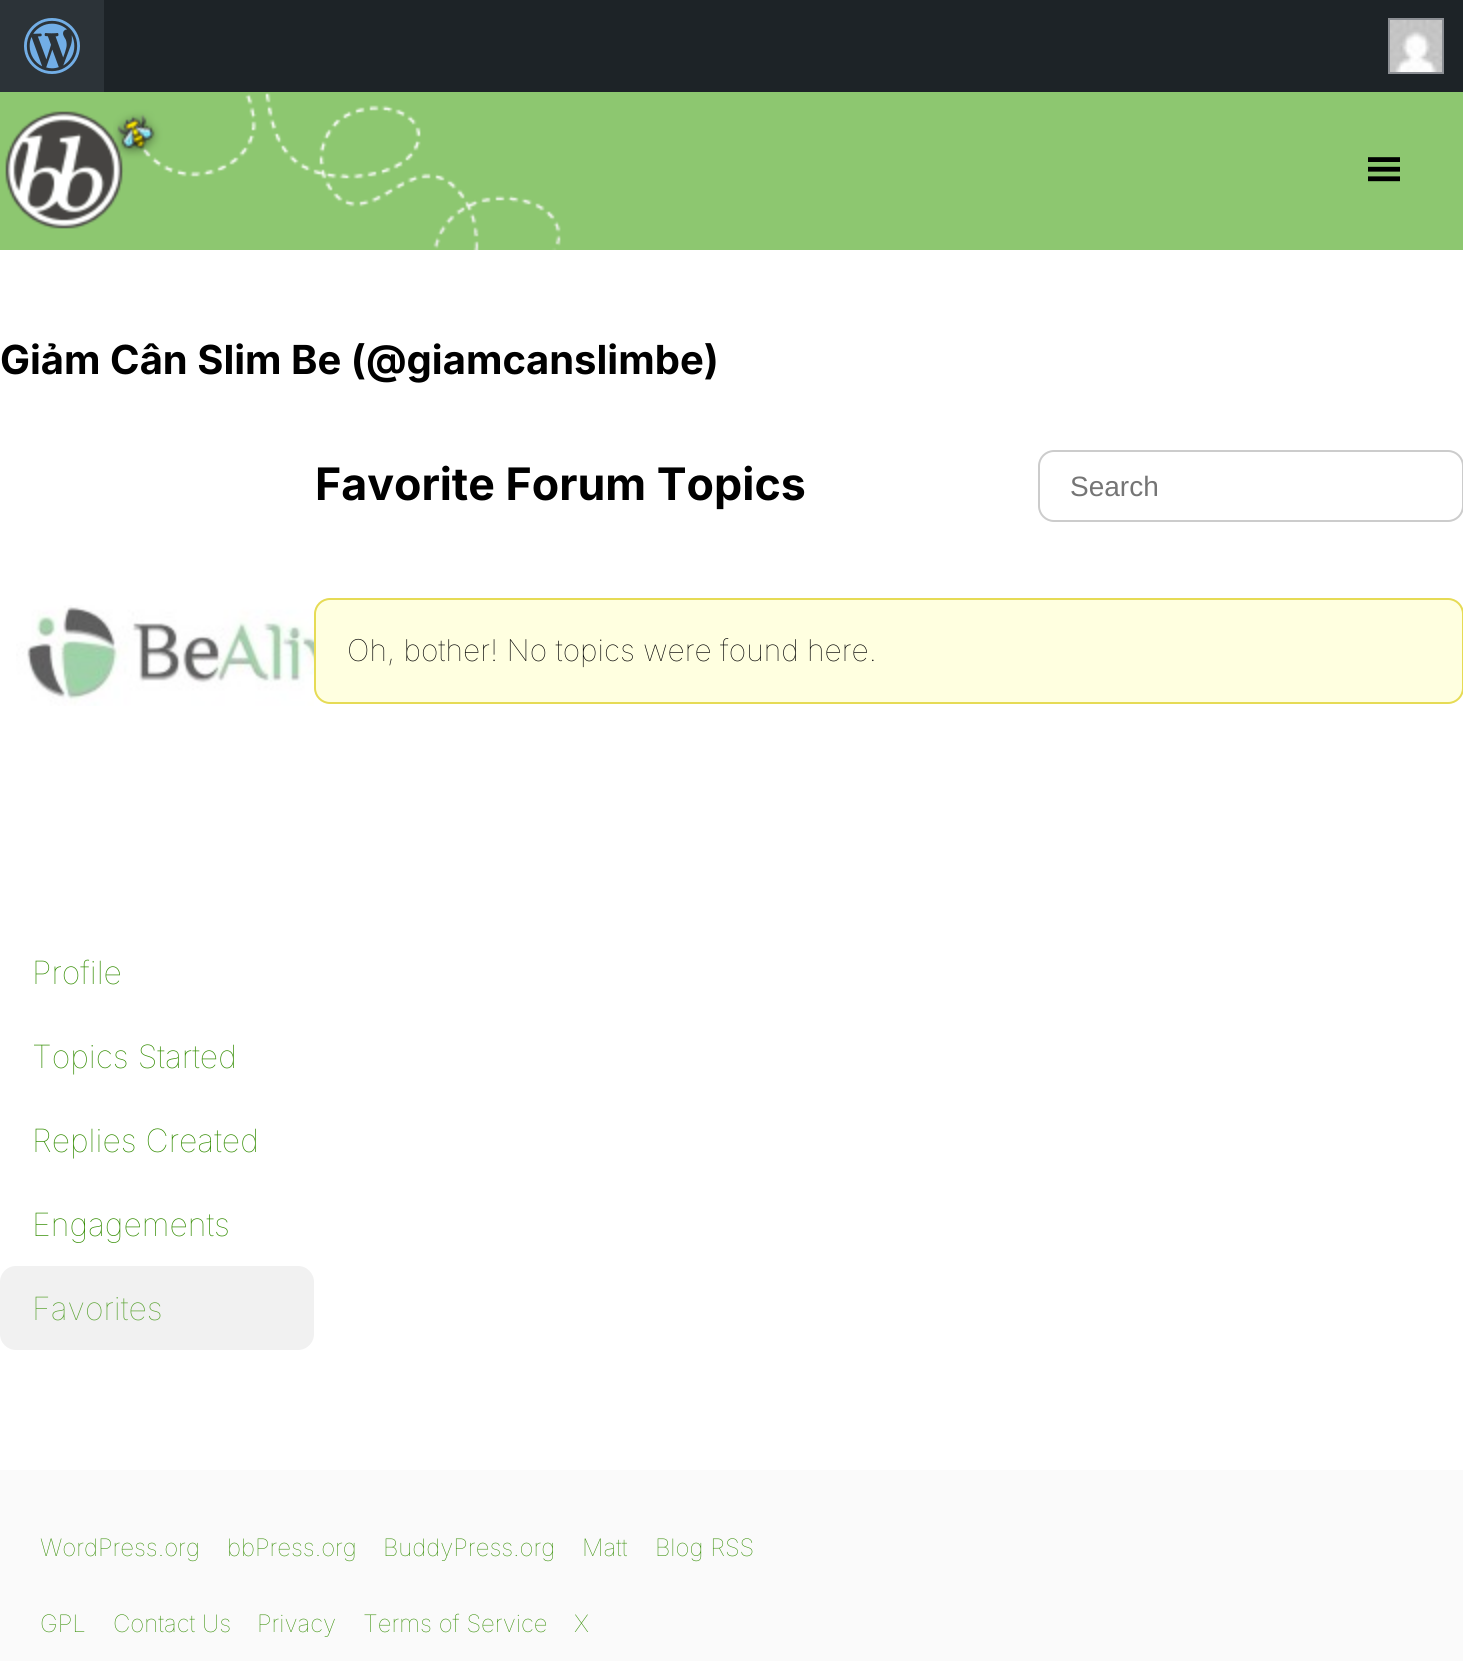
import math
import cairocffi as cairo

surface = cairo.ImageSurface(cairo.FORMAT_RGB24, 1463, 1661)
ctx = cairo.Context(surface)
options = cairo.FontOptions()
options.set_hint_metrics(cairo.HINT_METRICS_OFF)
options.set_hint_style(cairo.HINT_STYLE_NONE)
ctx.set_font_options(options)
ctx.set_miter_limit(4)


def rgb(r, g, b):
    ctx.set_source_rgb(r / 255, g / 255, b / 255)


def face(family, size, italic, bold):
    ctx.select_font_face(family, cairo.FONT_SLANT_ITALIC if italic else cairo.FONT_SLANT_NORMAL, cairo.FONT_WEIGHT_BOLD if bold else cairo.FONT_WEIGHT_NORMAL)
    ctx.set_font_size(size)


def label(x, y, s):
    ctx.move_to(x, y)
    ctx.show_text(s)


def rect(x, y, w, h):
    ctx.rectangle(x, y, w, h)
    ctx.fill()


def rrect(x, y, w, h, r):
    ctx.new_sub_path()
    for i, (u, v) in enumerate([(x + w - r, y + h - r), (x + r, y + h - r), (x + r, y + r), (x + w - r, y + r)]):
        ctx.arc(u, v, r, i * math.pi / 2, (i + 1) * math.pi / 2)
    ctx.close_path()


def image(path, x, y, w, h):
    ctx.save()
    ctx.set_source_surface(cairo.ImageSurface.create_from_png(path), x, y)
    ctx.rectangle(x, y, w, h)
    ctx.fill()
    ctx.restore()


rgb(255, 255, 255)
ctx.paint()
rgb(29, 35, 39)
rect(104, 0, 1359, 92)
rgb(44, 51, 56)
rect(0, 0, 104, 92)
image('image0.png', 24, 18, 56, 56)
ctx.rectangle(1389, 19, 54, 54)
rgb(140, 143, 148)
ctx.stroke()
image('image1.png', 1390, 20, 52, 52)
rgb(141, 199, 112)
rect(0, 92, 1463, 158)
image('image2.png', 113, 93, 448, 157)
image('image3.png', 5, 111, 125, 118)
image('image4.png', 1368, 157, 32, 25)
face('Inter', 40, 0, 1)
rgb(0, 0, 0)
label(0, 374, 'Giảm Cân Slim Be (@giamcanslimbe)')
face('Inter', 44.75, 0, 1)
label(315, 500, 'Favorite Forum Topics')
rrect(1039, 451, 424, 70, 15)
rgb(204, 204, 204)
ctx.stroke()
face('Liberation Sans', 28, 0, 0)
rgb(117, 117, 117)
label(1070, 496, 'Search')
rgb(255, 255, 224)
rrect(315, 599, 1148, 104, 15)
ctx.fill_preserve()
rgb(230, 219, 85)
ctx.stroke()
face('Inter Thin', 30, 0, 0)
rgb(0, 0, 0)
label(347, 661, 'Oh, bother! No topics were found here.')
image('image5.png', 16, 605, 298, 101)
face('Inter Thin', 32, 0, 0)
rgb(50, 140, 0)
label(32, 984, 'Profile')
label(32, 1068, 'Topics Started')
label(32, 1152, 'Replies Created')
label(32, 1236, 'Engagements')
rgb(241, 241, 241)
rrect(0, 1266, 314, 84, 16)
ctx.fill()
rgb(91, 163, 51)
label(32, 1320, 'Favorites')
rgb(250, 250, 250)
rect(0, 1470, 1463, 191)
face('Inter Thin', 24, 0, 0)
rgb(50, 140, 0)
label(40, 1556, 'WordPress.org')
label(227, 1556, 'bbPress.org')
label(383, 1556, 'BuddyPress.org')
label(582, 1556, 'Matt')
label(655, 1556, 'Blog RSS')
label(40, 1632, 'GPL')
label(113, 1632, 'Contact Us')
label(257, 1632, 'Privacy')
label(363, 1632, 'Terms of Service')
label(574, 1632, 'X')
surface.write_to_png('render.png')
